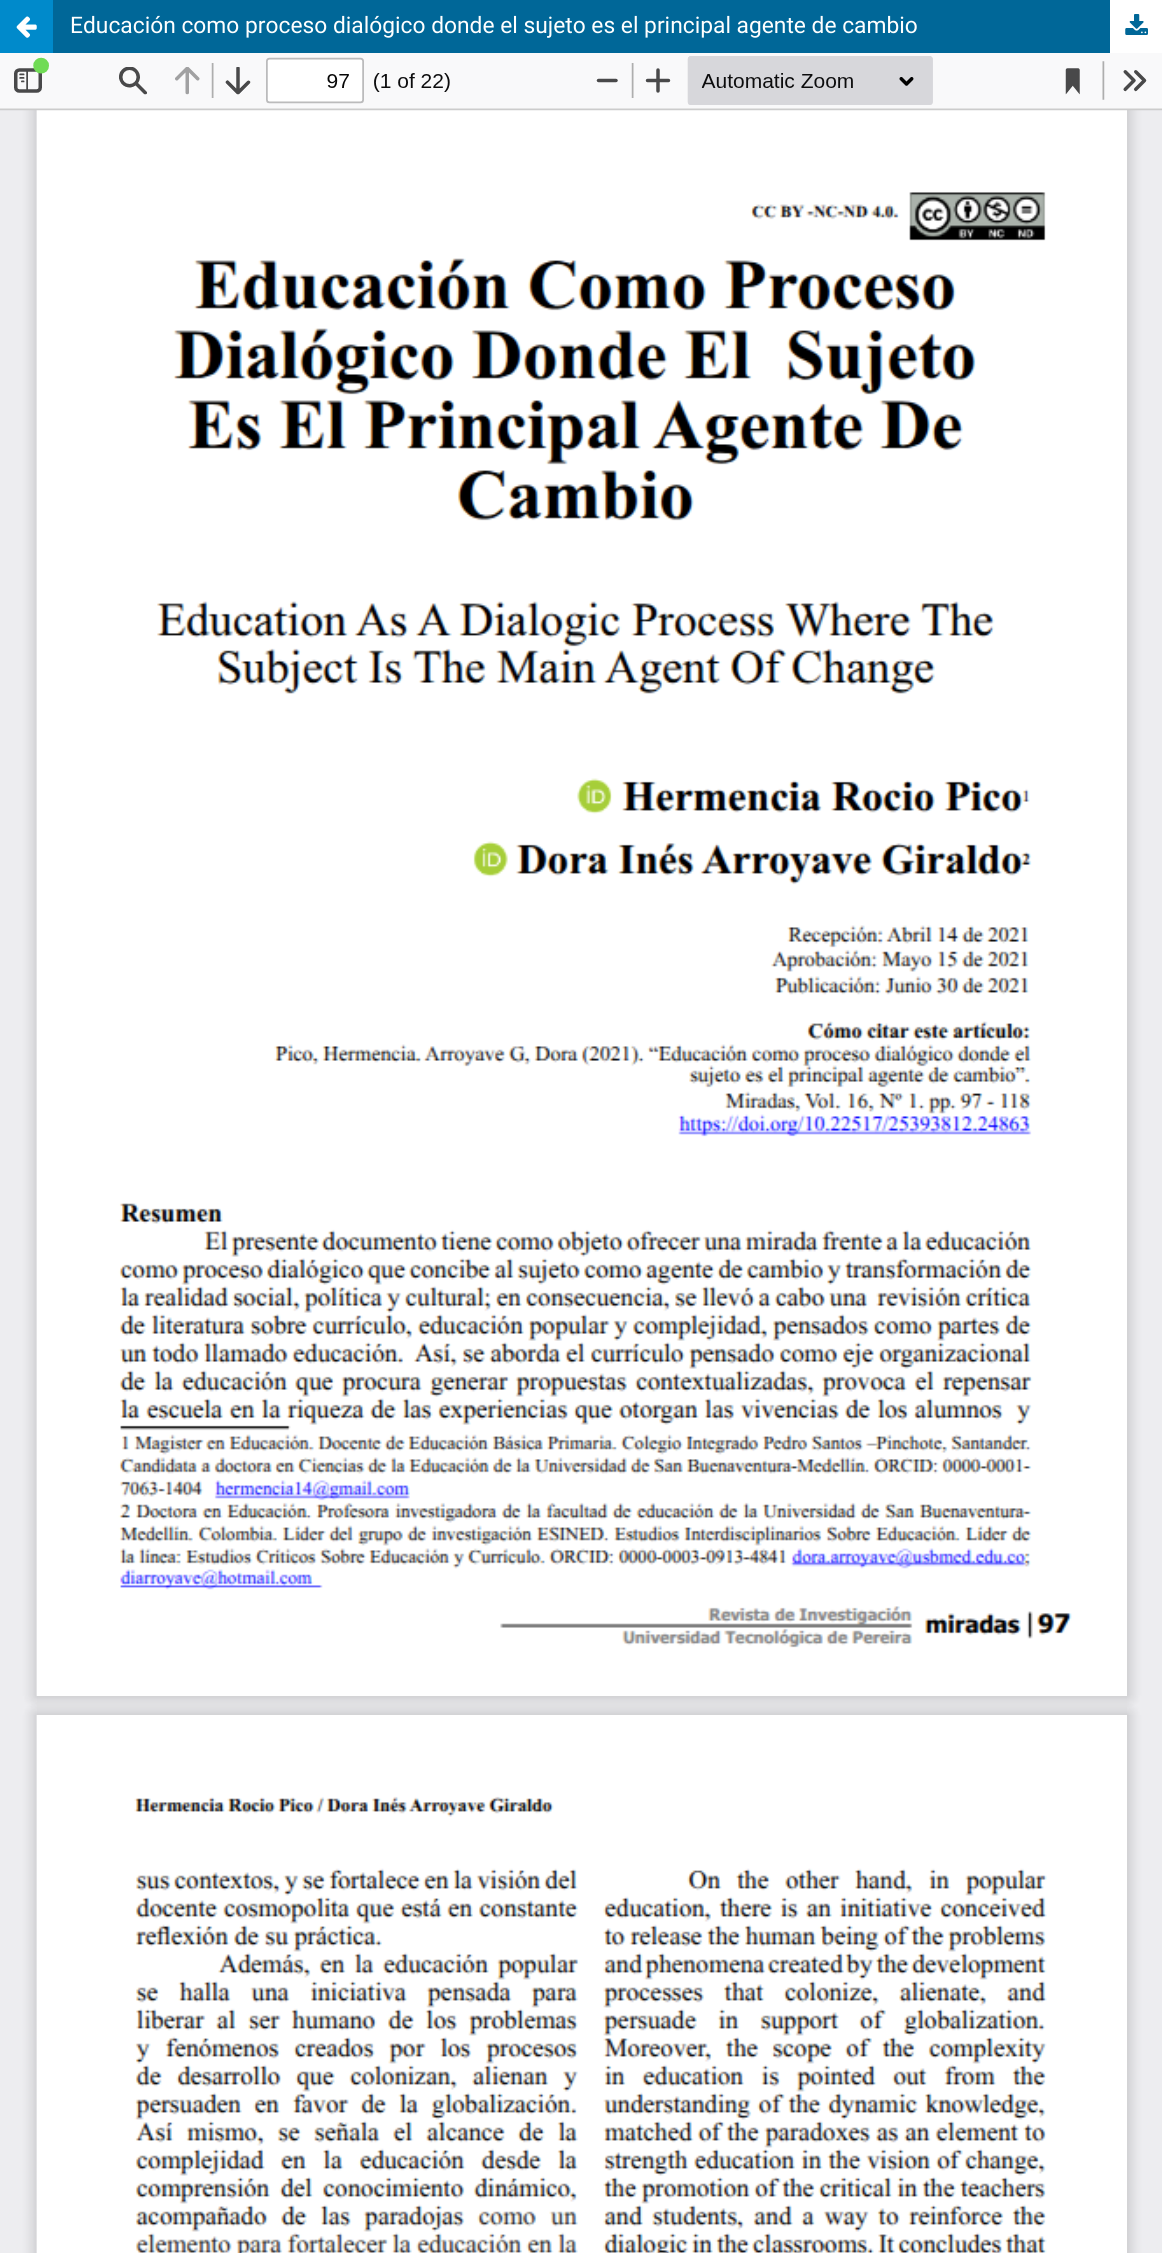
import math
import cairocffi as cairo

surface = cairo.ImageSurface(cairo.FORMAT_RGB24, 1162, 2253)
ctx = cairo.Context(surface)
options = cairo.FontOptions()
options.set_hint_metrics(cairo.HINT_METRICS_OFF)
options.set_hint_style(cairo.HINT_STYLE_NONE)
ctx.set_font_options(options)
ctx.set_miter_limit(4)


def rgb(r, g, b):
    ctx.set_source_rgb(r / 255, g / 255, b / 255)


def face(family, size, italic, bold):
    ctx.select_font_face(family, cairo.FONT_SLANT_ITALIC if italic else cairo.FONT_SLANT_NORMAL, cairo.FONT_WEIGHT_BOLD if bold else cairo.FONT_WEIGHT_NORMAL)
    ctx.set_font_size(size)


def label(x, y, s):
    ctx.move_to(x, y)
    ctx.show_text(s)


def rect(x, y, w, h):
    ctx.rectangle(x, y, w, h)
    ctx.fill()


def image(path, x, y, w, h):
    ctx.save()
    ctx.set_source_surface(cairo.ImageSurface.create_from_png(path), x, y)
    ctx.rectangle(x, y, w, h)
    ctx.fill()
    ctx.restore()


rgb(255, 255, 255)
ctx.paint()
rgb(0, 103, 152)
rect(53, 0, 1057, 53)
rgb(0, 138, 203)
rect(0, 0, 53, 53)
image('image0.png', 16, 16, 21, 22)
face('Roboto', 22.8, 0, 0)
rgb(255, 255, 255)
label(70, 33, 'Educación como proceso dialógico donde el sujeto es el principal agente de cambio')
image('image1.png', 1125, 14, 23, 21)
image('image2.png', 0, 53, 1162, 2200)
surface.write_to_png('render.png')
